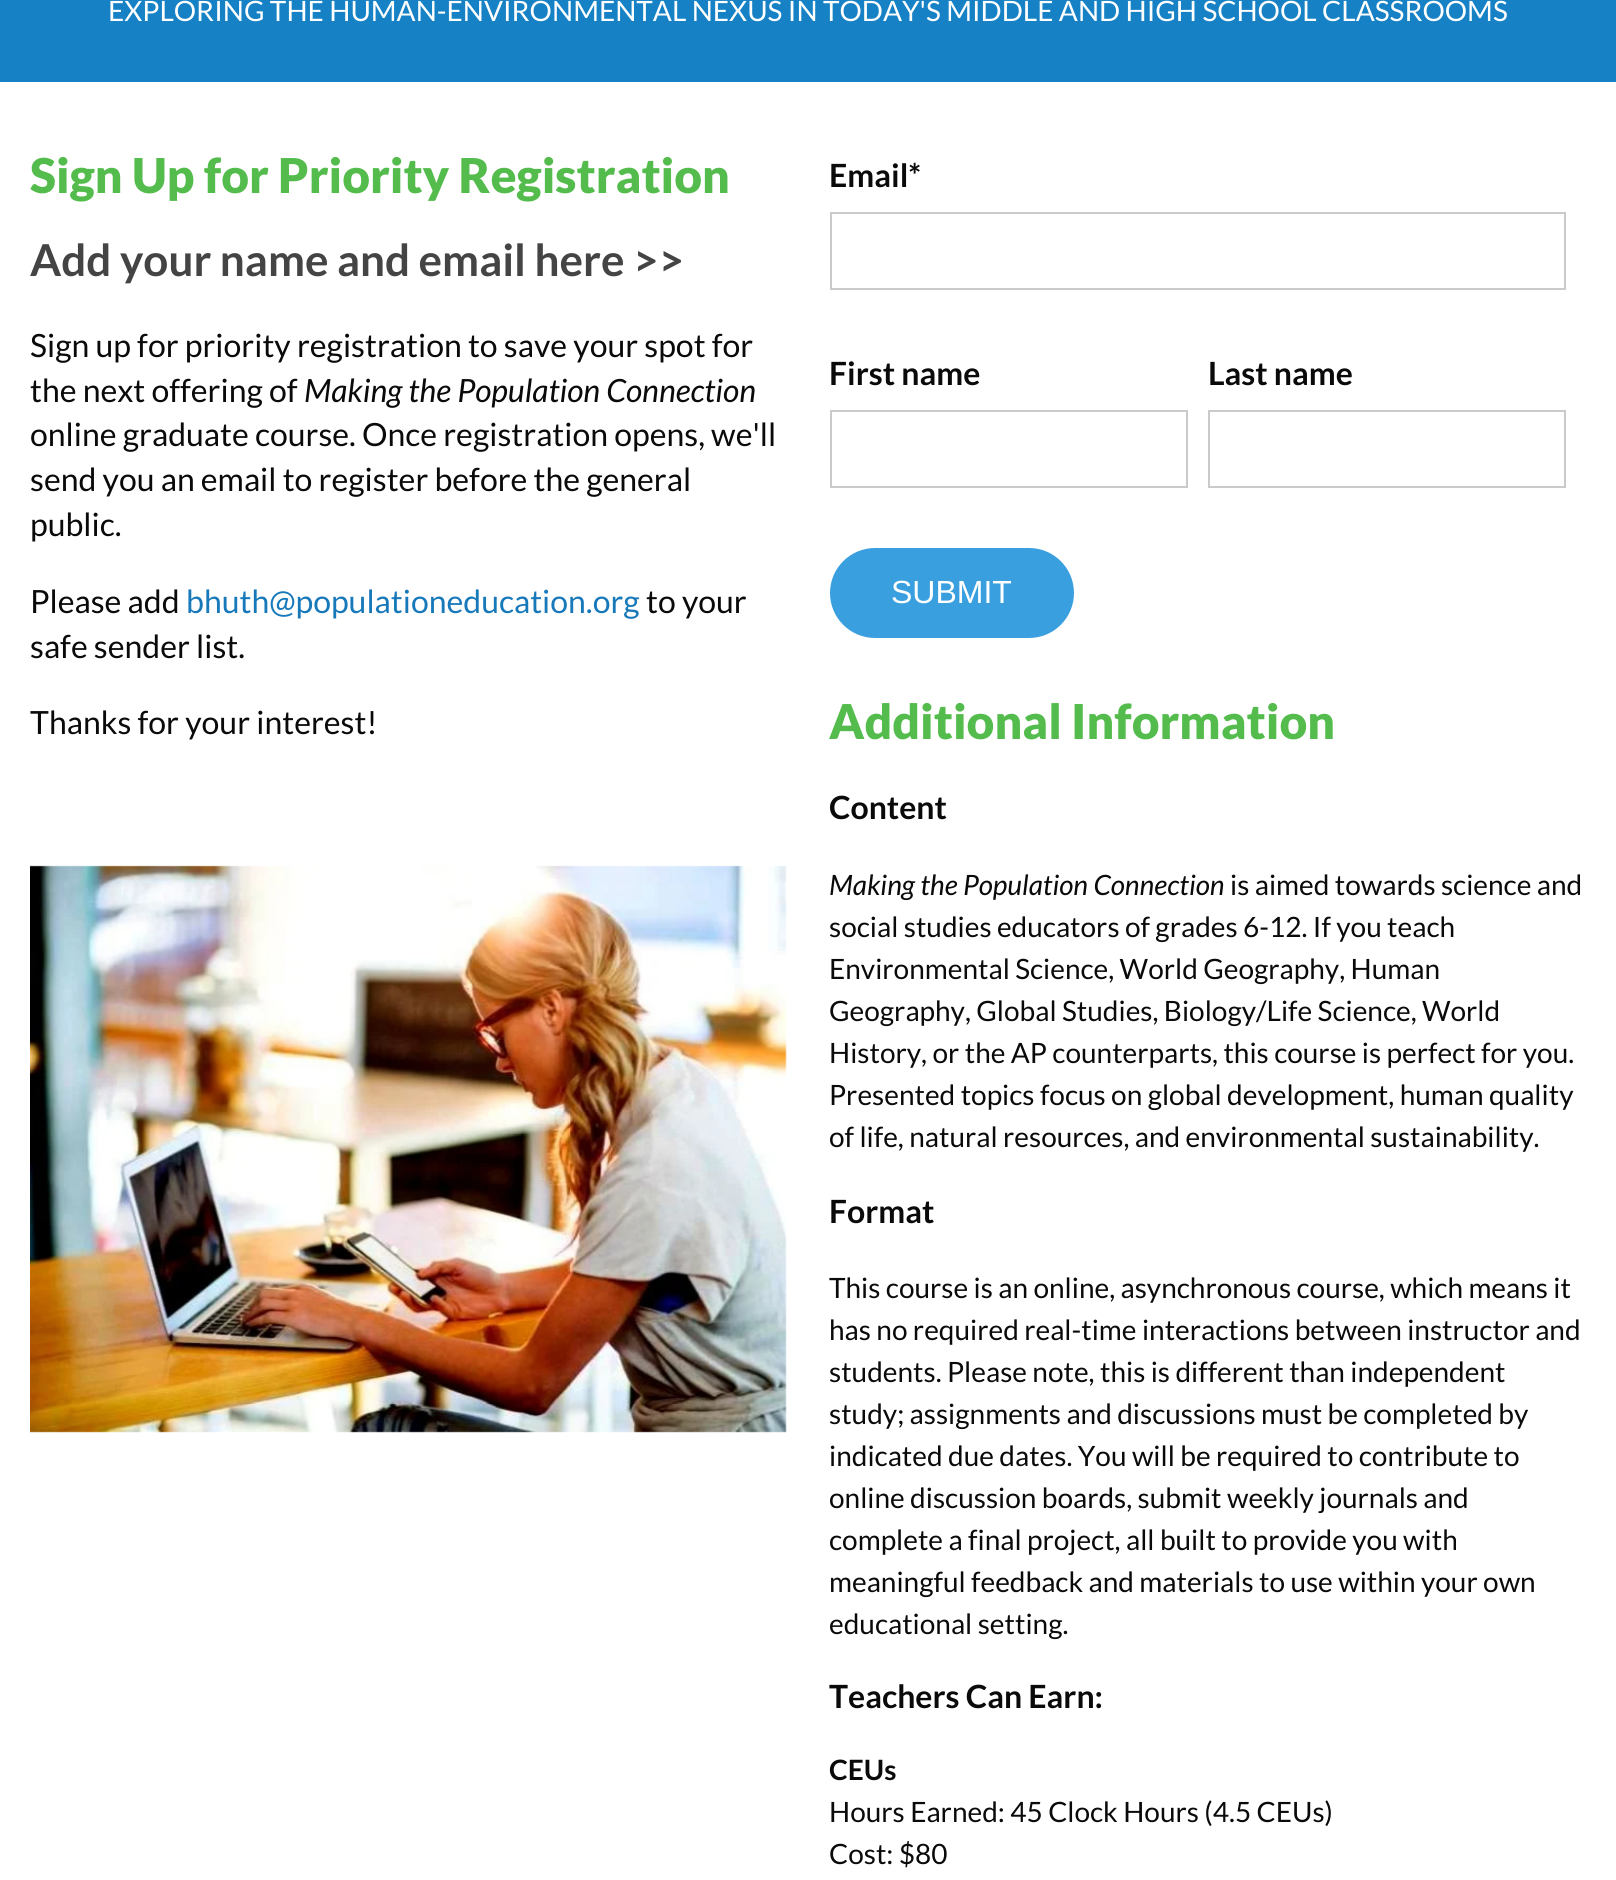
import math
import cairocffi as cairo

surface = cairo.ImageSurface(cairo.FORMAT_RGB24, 1616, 1880)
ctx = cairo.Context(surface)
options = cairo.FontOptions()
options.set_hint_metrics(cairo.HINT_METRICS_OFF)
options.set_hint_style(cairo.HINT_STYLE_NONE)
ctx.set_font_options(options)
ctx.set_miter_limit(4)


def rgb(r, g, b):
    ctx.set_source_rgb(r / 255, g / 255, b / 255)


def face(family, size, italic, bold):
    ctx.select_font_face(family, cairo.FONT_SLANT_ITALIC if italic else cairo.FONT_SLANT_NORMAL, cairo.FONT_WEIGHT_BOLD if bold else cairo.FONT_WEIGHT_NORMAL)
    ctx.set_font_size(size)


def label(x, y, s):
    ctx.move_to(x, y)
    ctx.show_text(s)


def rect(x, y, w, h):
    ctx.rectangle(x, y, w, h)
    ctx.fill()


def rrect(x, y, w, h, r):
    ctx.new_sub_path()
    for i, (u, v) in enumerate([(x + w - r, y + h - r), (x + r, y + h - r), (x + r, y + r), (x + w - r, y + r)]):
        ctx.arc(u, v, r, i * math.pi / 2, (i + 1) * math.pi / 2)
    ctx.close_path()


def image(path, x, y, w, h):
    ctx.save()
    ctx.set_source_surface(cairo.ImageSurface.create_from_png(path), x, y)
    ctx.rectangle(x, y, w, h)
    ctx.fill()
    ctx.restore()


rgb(255, 255, 255)
ctx.paint()
rgb(22, 129, 197)
rect(0, 0, 1616, 82)
face('Lato', 28, 0, 0)
rgb(255, 255, 255)
label(108, 21, 'EXPLORING THE HUMAN-ENVIRONMENTAL NEXUS IN TODAY\'S MIDDLE AND HIGH SCHOOL CLASSROOMS')
face('Lato Black', 48, 0, 0)
rgb(83, 188, 76)
label(30, 193, 'Sign Up for Priority Registration')
face('Lato', 44, 0, 1)
rgb(68, 68, 68)
label(30, 276, 'Add your name and email here >>')
face('Lato', 32, 0, 0)
rgb(10, 10, 10)
label(30, 357, 'Sign up for priority registration to save your spot for')
label(30, 402, 'the next offering of')
face('Lato', 32, 1, 0)
label(304, 402, 'Making the Population Connection')
face('Lato', 32, 0, 0)
label(30, 446, 'online graduate course. Once registration opens, we\'ll')
label(30, 491, 'send you an email to register before the general')
label(30, 536, 'public.')
label(30, 613, 'Please add')
rgb(23, 121, 186)
label(186, 613, 'bhuth@populationeducation.org')
rgb(10, 10, 10)
label(646, 613, 'to your')
label(30, 658, 'safe sender list.')
label(30, 734, 'Thanks for your interest!')
image('image0.png', 30, 865, 757, 568)
face('Lato', 32, 0, 1)
label(829, 187, 'Email*')
ctx.rectangle(831, 213, 734, 76)
rgb(202, 202, 202)
ctx.stroke()
rgb(10, 10, 10)
label(829, 385, 'First name')
ctx.rectangle(831, 411, 356, 76)
rgb(202, 202, 202)
ctx.stroke()
rgb(10, 10, 10)
label(1208, 385, 'Last name')
ctx.rectangle(1209, 411, 356, 76)
rgb(202, 202, 202)
ctx.stroke()
rgb(58, 159, 223)
rrect(830, 548, 244, 90, 45)
ctx.fill()
face('Liberation Sans', 32, 0, 0)
rgb(255, 255, 255)
label(891, 603, 'SUBMIT')
face('Lato Black', 48, 0, 0)
rgb(83, 188, 76)
label(829, 739, 'Additional Information')
face('Lato', 32, 0, 1)
rgb(10, 10, 10)
label(829, 819, 'Content')
face('Lato', 28, 1, 0)
label(829, 895, 'Making the Population Connection')
face('Lato', 28, 0, 0)
label(1230, 895, 'is aimed towards science and')
label(829, 937, 'social studies educators of grades 6-12. If you teach')
label(829, 979, 'Environmental Science, World Geography, Human')
label(829, 1021, 'Geography, Global Studies, Biology/Life Science, World')
label(829, 1063, 'History, or the AP counterparts, this course is perfect for you.')
label(829, 1105, 'Presented topics focus on global development, human quality')
label(829, 1147, 'of life, natural resources, and environmental sustainability.')
face('Lato', 32, 0, 1)
label(829, 1223, 'Format')
face('Lato', 28, 0, 0)
label(829, 1298, 'This course is an online, asynchronous course, which means it')
label(829, 1340, 'has no required real-time interactions between instructor and')
label(829, 1382, 'students. Please note, this is different than independent')
label(829, 1424, 'study; assignments and discussions must be completed by')
label(829, 1466, 'indicated due dates. You will be required to contribute to')
label(829, 1508, 'online discussion boards, submit weekly journals and')
label(829, 1550, 'complete a final project, all built to provide you with')
label(829, 1592, 'meaningful feedback and materials to use within your own')
label(829, 1634, 'educational setting.')
face('Lato', 32, 0, 1)
label(829, 1708, 'Teachers Can Earn:')
face('Lato', 28, 0, 1)
label(829, 1780, 'CEUs')
face('Lato', 28, 0, 0)
label(829, 1822, 'Hours Earned: 45 Clock Hours (4.5 CEUs)')
label(829, 1864, 'Cost: $80')
surface.write_to_png('render.png')
